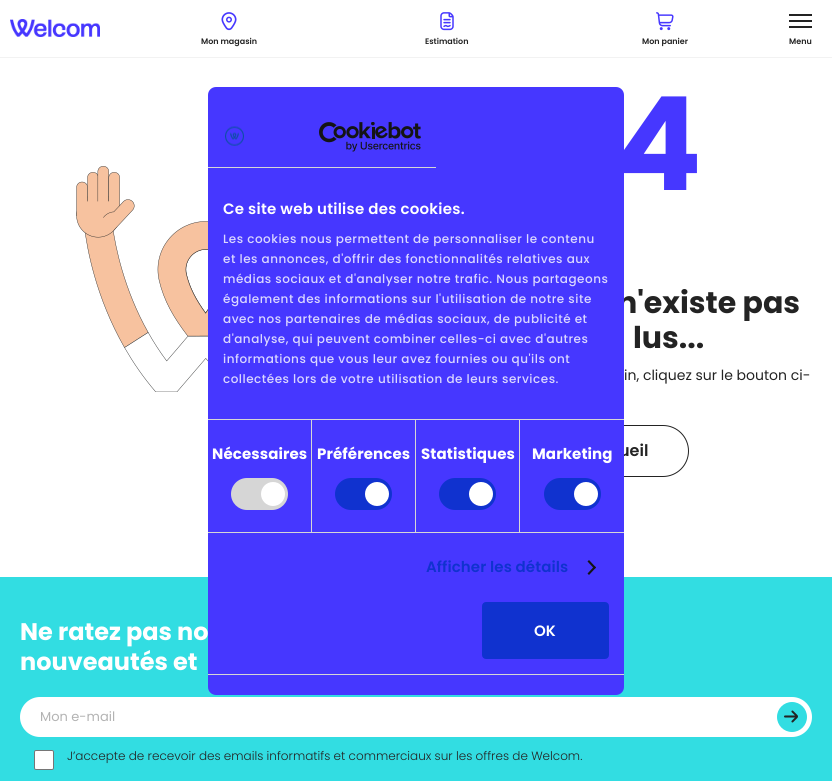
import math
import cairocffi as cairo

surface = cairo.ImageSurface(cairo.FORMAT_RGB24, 832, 781)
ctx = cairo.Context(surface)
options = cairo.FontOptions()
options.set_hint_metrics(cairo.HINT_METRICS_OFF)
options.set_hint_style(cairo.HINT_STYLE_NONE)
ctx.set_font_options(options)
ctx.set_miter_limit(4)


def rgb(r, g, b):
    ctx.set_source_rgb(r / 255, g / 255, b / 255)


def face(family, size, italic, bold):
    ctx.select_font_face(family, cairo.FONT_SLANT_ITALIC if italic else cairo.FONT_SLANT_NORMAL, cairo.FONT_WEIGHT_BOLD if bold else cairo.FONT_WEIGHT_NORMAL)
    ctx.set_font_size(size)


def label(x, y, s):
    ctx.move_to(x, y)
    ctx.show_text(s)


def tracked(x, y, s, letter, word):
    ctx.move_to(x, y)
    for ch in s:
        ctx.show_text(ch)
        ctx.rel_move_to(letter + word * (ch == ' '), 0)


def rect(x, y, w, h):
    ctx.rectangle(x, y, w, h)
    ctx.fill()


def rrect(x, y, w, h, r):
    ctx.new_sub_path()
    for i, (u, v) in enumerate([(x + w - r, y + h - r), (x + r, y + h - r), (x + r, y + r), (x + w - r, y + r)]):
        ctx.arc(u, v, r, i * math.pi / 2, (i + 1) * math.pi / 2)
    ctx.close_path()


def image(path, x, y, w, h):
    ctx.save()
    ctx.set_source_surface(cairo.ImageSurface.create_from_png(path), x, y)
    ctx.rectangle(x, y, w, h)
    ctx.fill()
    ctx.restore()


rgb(255, 255, 255)
ctx.paint()
rgb(242, 242, 242)
rect(0, 57, 832, 1)
image('image0.png', 10, 19, 90, 18)
image('image1.png', 221, 12, 16, 19)
face('Poppins SemiBold', 8, 0, 0)
rgb(35, 35, 35)
label(201, 44, 'Mon magasin')
image('image2.png', 440, 12, 14, 19)
label(425, 44, 'Estimation')
image('image3.png', 656, 12, 18, 19)
label(642, 44, 'Mon panier')
rect(789, 14, 23, 2)
rect(789, 20, 23, 2)
rect(789, 26, 23, 2)
label(789, 44, 'Menu')
image('image4.png', 76, 166, 132, 226)
face('Poppins', 130, 0, 1)
rgb(70, 55, 255)
label(614, 190, '4')
face('Poppins', 30, 0, 1)
rgb(35, 35, 35)
label(617, 313, 'n\'existe pas')
label(633, 348, 'lus...')
face('Poppins', 14, 0, 0)
label(624, 380, 'in, cliquez sur le bouton ci-')
rrect(441.5, 425.5, 247, 51, 25.5)
ctx.set_line_width(1)
ctx.stroke()
face('Poppins SemiBold', 16, 0, 0)
label(619, 456, 'ueil')
rgb(50, 221, 226)
rect(0, 577, 832, 204)
face('Poppins', 24, 0, 1)
rgb(255, 255, 255)
label(20, 640, 'Ne ratez pas no')
label(20, 670, 'nouveautés et')
rrect(20, 697, 792, 40, 20)
ctx.fill()
face('Poppins', 13, 0, 0)
rgb(179, 179, 179)
label(40, 721, 'Mon e-mail')
rgb(50, 221, 226)
ctx.new_path()
ctx.arc(792, 717, 15, 0, 2 * math.pi)
ctx.fill()
image('image5.png', 784, 710, 14, 13)
rgb(255, 255, 255)
rrect(34.5, 750.5, 19, 19, 1.5)
ctx.fill_preserve()
rgb(118, 118, 118)
ctx.stroke()
face('Poppins Light', 12, 0, 0)
rgb(35, 35, 35)
label(67, 760, 'J’accepte de recevoir des emails informatifs et commerciaux sur les offres de Welcom.')
rgb(70, 55, 255)
rrect(208, 87, 416, 608, 8)
ctx.fill()
rgb(214, 214, 214)
rect(208, 167, 228, 1)
image('image6.png', 225, 126, 19, 20)
image('image7.png', 319, 122, 102, 30)
rect(208, 419, 416, 1)
face('Poppins SemiBold', 15, 0, 0)
rgb(255, 255, 255)
tracked(223, 214, 'Ce site web utilise des cookies.', 0.25, 0)
face('Poppins Medium', 12, 0, 0)
rgb(218, 215, 255)
tracked(223, 243, 'Les cookies nous permettent de personnaliser le contenu', 0.5, 0)
tracked(223, 263, 'et les annonces, d\'offrir des fonctionnalités relatives aux', 0.5, 0)
tracked(223, 283, 'médias sociaux et d\'analyser notre trafic. Nous partageons', 0.5, 0)
tracked(223, 303, 'également des informations sur l\'utilisation de notre site', 0.5, 0)
tracked(223, 323, 'avec nos partenaires de médias sociaux, de publicité et', 0.5, 0)
tracked(223, 343, 'd\'analyse, qui peuvent combiner celles-ci avec d\'autres', 0.5, 0)
tracked(223, 363, 'informations que vous leur avez fournies ou qu\'ils ont', 0.5, 0)
tracked(223, 383, 'collectées lors de votre utilisation de leurs services.', 0.5, 0)
rgb(214, 214, 214)
rect(208, 532, 416, 1)
rect(311, 420, 1, 112)
face('Poppins', 15, 0, 1)
rgb(255, 255, 255)
tracked(212, 459, 'Nécessaires', 0.1, 0)
rgb(214, 214, 214)
rrect(231, 478, 57, 32, 16)
ctx.fill()
rgb(255, 255, 255)
ctx.arc(273, 494, 12, 0, 2 * math.pi)
ctx.fill()
rgb(214, 214, 214)
rect(415, 420, 1, 112)
rgb(255, 255, 255)
tracked(317, 459, 'Préférences', 0.1, 0)
rgb(16, 50, 207)
rrect(335, 478, 57, 32, 16)
ctx.fill()
rgb(255, 255, 255)
ctx.arc(377, 494, 12, 0, 2 * math.pi)
ctx.fill()
rgb(214, 214, 214)
rect(519, 420, 1, 112)
rgb(255, 255, 255)
tracked(421, 459, 'Statistiques', 0.1, 0)
rgb(16, 50, 207)
rrect(439, 478, 57, 32, 16)
ctx.fill()
rgb(255, 255, 255)
ctx.arc(481, 494, 12, 0, 2 * math.pi)
ctx.fill()
tracked(532, 459, 'Marketing', 0.1, 0)
rgb(16, 50, 207)
rrect(544, 478, 57, 32, 16)
ctx.fill()
rgb(255, 255, 255)
ctx.arc(586, 494, 12, 0, 2 * math.pi)
ctx.fill()
face('Poppins SemiBold', 15, 0, 0)
rgb(16, 50, 207)
tracked(426, 572, 'Afficher les détails', 0.1, 0)
rgb(20, 20, 20)
ctx.new_path()
ctx.move_to(589, 560)
ctx.line_to(596, 567.5)
ctx.line_to(594.5, 569)
ctx.line_to(587.5, 561.5)
ctx.close_path()
ctx.fill()
ctx.new_path()
ctx.move_to(594.5, 566)
ctx.line_to(596, 567.5)
ctx.line_to(589, 575)
ctx.line_to(587.5, 573.5)
ctx.close_path()
ctx.fill()
rgb(214, 214, 214)
rect(208, 674, 416, 1)
rgb(16, 50, 207)
rrect(483, 603, 125, 55, 3)
ctx.fill_preserve()
ctx.set_line_width(2)
ctx.stroke()
rgb(255, 255, 255)
label(534, 636, 'OK')
surface.write_to_png('render.png')
